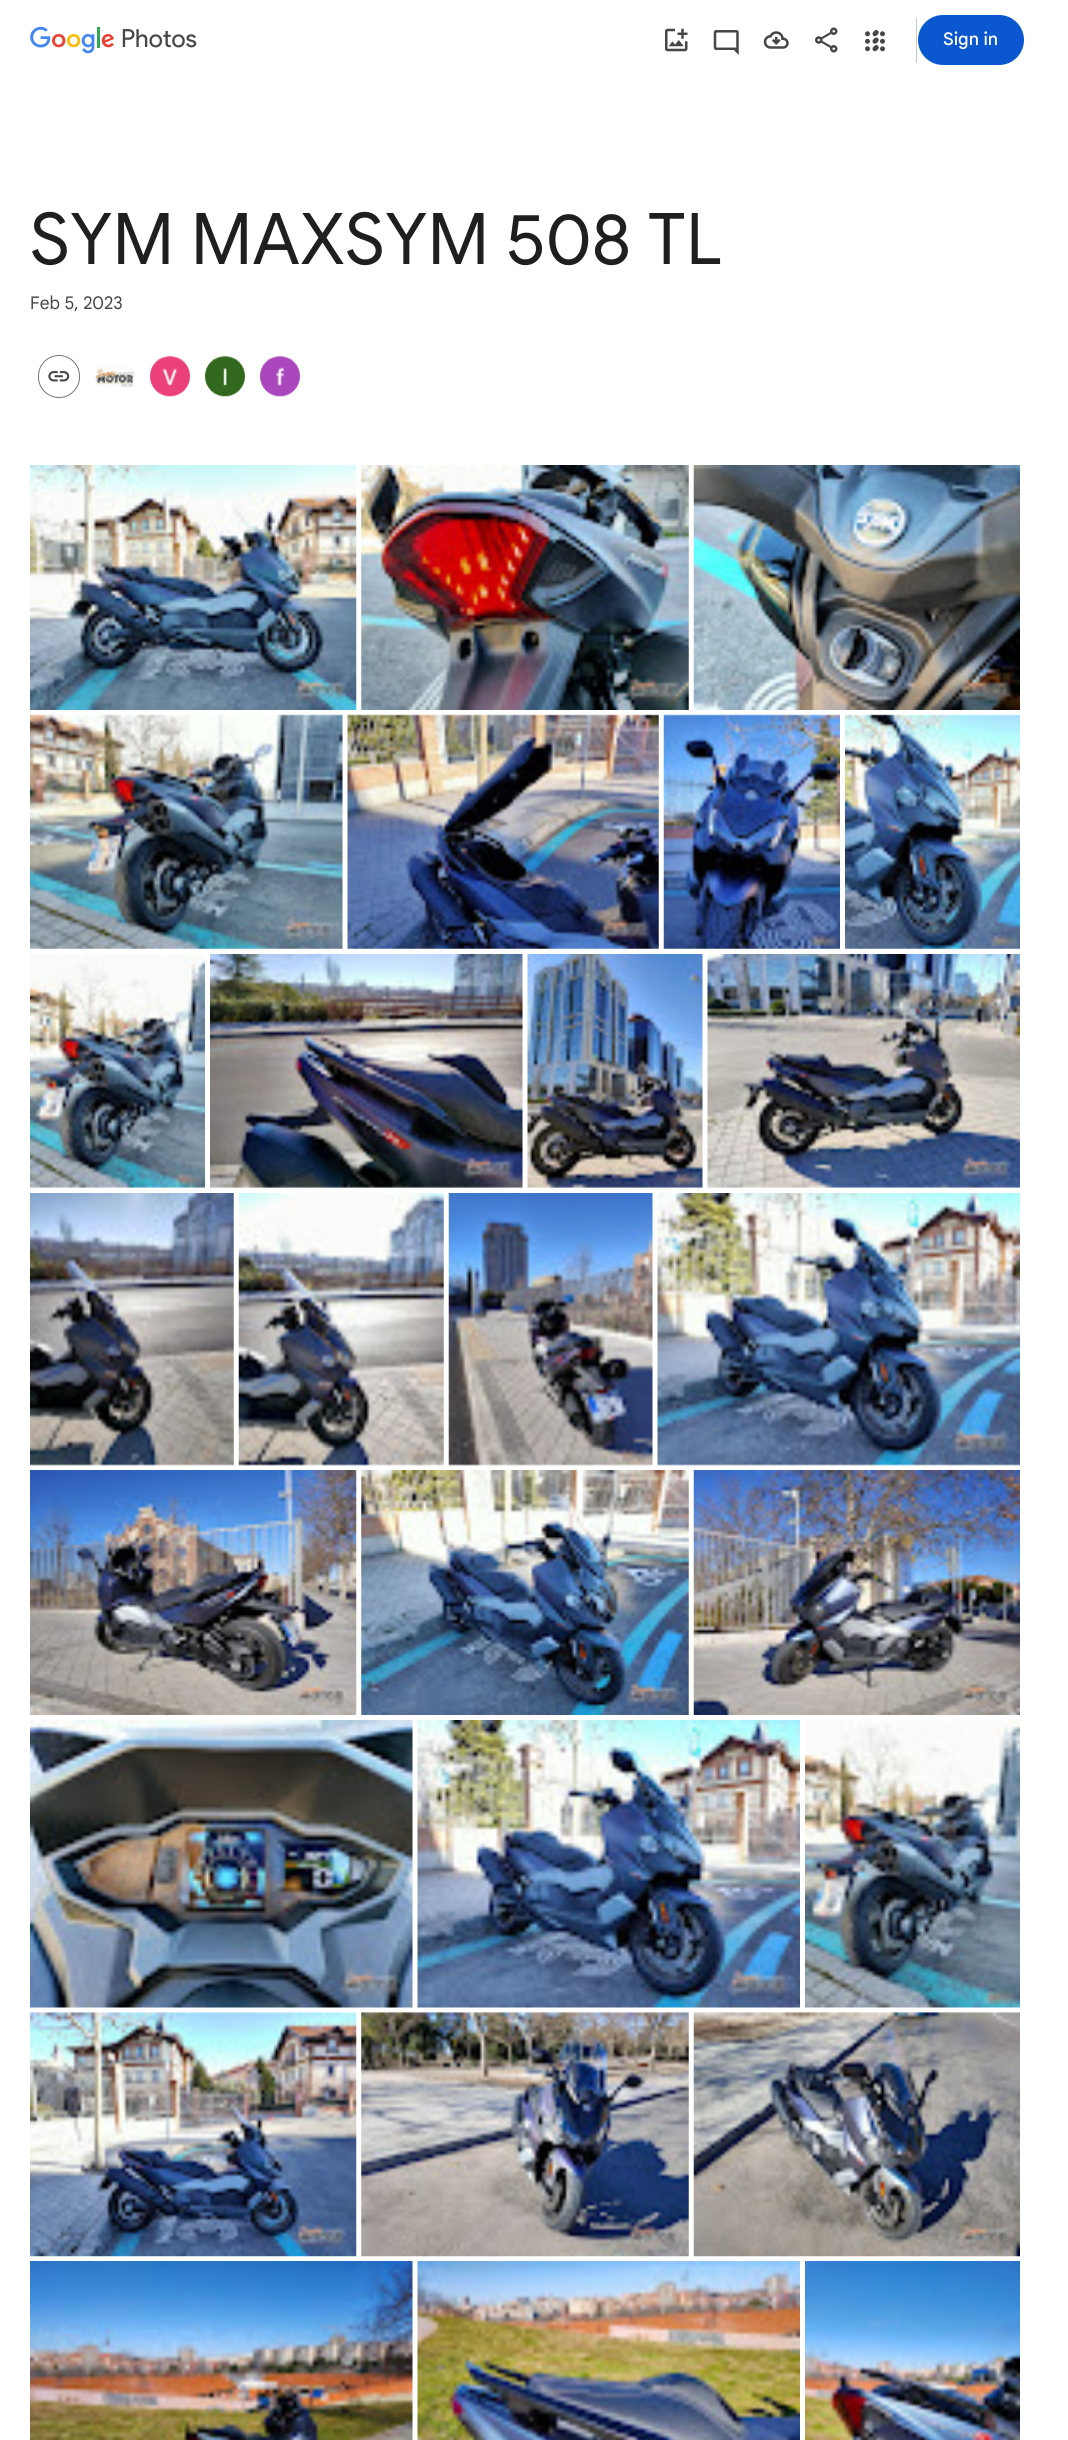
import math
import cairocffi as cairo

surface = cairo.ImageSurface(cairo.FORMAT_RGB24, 1068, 2440)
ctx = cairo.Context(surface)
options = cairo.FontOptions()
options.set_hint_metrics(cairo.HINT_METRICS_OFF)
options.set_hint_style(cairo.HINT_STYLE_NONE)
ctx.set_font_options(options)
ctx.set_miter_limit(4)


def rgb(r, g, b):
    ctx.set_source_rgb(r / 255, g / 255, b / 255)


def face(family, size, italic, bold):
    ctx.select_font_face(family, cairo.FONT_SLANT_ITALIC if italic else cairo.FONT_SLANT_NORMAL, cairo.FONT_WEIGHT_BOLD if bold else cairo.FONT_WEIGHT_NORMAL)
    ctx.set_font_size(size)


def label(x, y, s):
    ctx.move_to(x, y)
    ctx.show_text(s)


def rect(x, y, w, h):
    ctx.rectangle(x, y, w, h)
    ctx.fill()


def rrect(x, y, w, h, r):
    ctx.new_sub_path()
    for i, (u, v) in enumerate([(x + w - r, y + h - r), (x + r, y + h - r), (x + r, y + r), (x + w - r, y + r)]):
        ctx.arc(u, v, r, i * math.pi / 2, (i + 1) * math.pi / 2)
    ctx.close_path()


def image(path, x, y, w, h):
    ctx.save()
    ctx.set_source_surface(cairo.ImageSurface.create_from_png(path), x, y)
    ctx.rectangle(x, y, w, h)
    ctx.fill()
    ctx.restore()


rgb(255, 255, 255)
ctx.paint()
image('image0.png', 30, 26, 84, 28)
face('Product Sans', 25, 0, 0)
rgb(68, 71, 70)
label(121, 47, 'Photos')
image('image1.png', 665, 28, 23, 24)
image('image2.png', 713, 30, 26, 25)
image('image3.png', 763, 31, 26, 18)
image('image4.png', 815, 27, 23, 26)
image('image5.png', 873, 30, 6, 20)
rgb(196, 199, 197)
rect(916, 18, 1, 45)
face('Google Sans', 71.25, 0, 0)
rgb(31, 31, 31)
label(30, 264, 'SYM MAXSYM 508 TL')
face('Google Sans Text', 17.5, 0, 0)
rgb(68, 71, 70)
label(30, 309, 'Feb 5, 2023')
rrect(38.5, 355.5, 41, 42, 20.5)
rgb(116, 119, 117)
ctx.set_line_width(1)
ctx.stroke()
image('image6.png', 48, 371, 22, 11)
image('image7.png', 95, 366, 40, 22)
image('image8.png', 150, 356, 40, 41)
image('image9.png', 205, 356, 40, 41)
image('image10.png', 260, 356, 40, 41)
image('image11.png', 30, 465, 327, 245)
image('image12.png', 361, 465, 328, 245)
image('image13.png', 693, 465, 327, 245)
image('image14.png', 30, 714, 313, 235)
image('image15.png', 347, 714, 312, 235)
image('image16.png', 663, 714, 177, 235)
image('image17.png', 845, 714, 175, 235)
image('image18.png', 30, 954, 175, 234)
image('image19.png', 210, 954, 313, 234)
image('image20.png', 527, 954, 176, 234)
image('image21.png', 707, 954, 313, 234)
image('image22.png', 30, 1193, 204, 273)
image('image23.png', 238, 1193, 206, 273)
image('image24.png', 448, 1193, 205, 273)
image('image25.png', 657, 1193, 363, 273)
image('image26.png', 30, 1470, 327, 245)
image('image27.png', 361, 1470, 328, 245)
image('image28.png', 693, 1470, 327, 245)
image('image29.png', 30, 1720, 383, 288)
image('image30.png', 417, 1720, 383, 288)
image('image31.png', 805, 1720, 215, 288)
image('image32.png', 30, 2012, 327, 245)
image('image33.png', 361, 2012, 328, 245)
image('image34.png', 693, 2012, 327, 245)
image('image35.png', 30, 2261, 383, 179)
image('image36.png', 417, 2261, 383, 179)
image('image37.png', 805, 2261, 215, 179)
image('image38.png', 865, 31, 20, 21)
rgb(11, 87, 208)
rrect(918, 15, 106, 50, 25)
ctx.fill()
face('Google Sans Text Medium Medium', 17.5, 0, 0)
rgb(255, 255, 255)
label(943, 45, 'Sign in')
surface.write_to_png('render.png')
